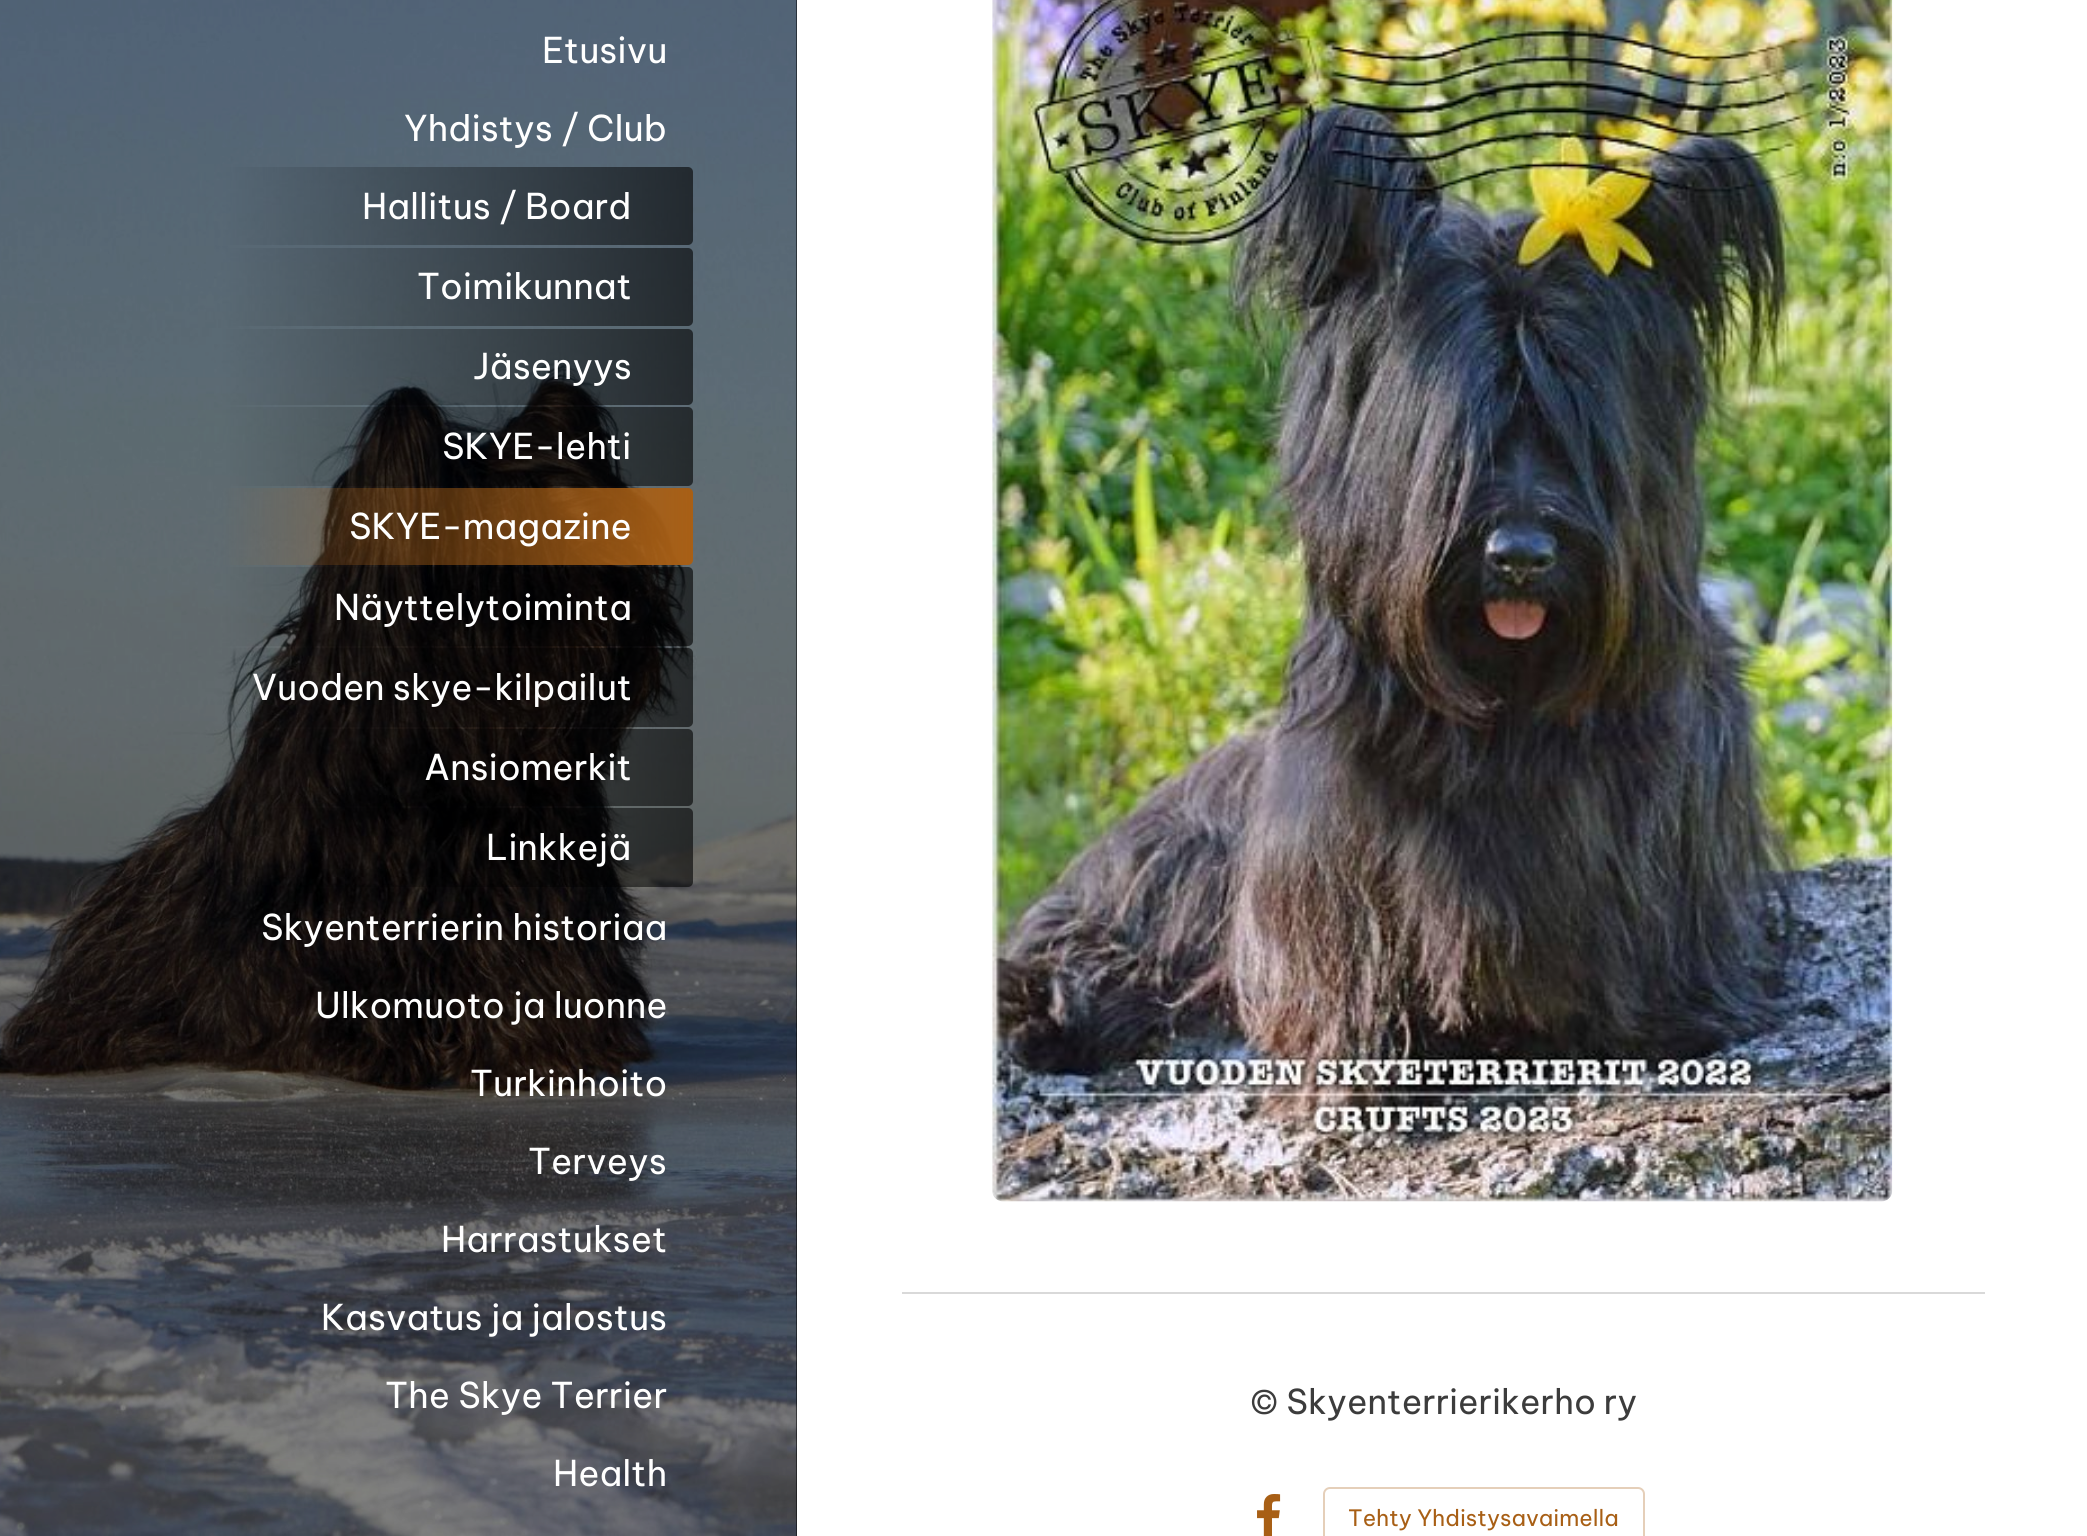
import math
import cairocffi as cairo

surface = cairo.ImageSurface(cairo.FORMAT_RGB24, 2087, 1536)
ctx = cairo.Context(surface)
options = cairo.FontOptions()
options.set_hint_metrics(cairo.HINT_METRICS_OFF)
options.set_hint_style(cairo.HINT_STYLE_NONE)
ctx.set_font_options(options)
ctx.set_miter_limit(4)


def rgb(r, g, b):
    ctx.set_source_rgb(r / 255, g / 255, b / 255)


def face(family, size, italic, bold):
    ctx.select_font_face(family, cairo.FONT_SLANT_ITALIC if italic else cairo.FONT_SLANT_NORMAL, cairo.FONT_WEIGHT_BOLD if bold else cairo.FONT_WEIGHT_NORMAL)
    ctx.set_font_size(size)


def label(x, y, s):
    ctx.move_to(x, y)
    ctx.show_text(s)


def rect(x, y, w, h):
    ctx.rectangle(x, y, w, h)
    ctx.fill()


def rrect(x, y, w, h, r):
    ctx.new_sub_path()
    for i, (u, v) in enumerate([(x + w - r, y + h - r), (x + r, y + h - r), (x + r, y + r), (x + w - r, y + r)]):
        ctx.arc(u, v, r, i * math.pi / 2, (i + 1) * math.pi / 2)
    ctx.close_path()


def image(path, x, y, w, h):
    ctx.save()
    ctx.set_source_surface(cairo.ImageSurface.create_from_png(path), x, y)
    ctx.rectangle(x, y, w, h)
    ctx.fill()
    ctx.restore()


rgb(255, 255, 255)
ctx.paint()
rgb(0, 0, 0)
rect(796, 0, 1, 1536)
image('image0.png', 0, 0, 797, 1536)
face('Be Vietnam Pro', 35.5, 0, 0)
rgb(255, 255, 255)
label(542, 63, 'Etusivu')
label(404, 141, 'Yhdistys / Club')
label(362, 219, 'Hallitus / Board')
label(417, 299, 'Toimikunnat')
label(473, 379, 'Jäsenyys')
label(442, 459, 'SKYE-lehti')
label(349, 539, 'SKYE-magazine')
label(334, 620, 'Näyttelytoiminta')
label(252, 700, 'Vuoden skye-kilpailut')
label(424, 780, 'Ansiomerkit')
label(486, 860, 'Linkkejä')
label(261, 940, 'Skyenterrierin historiaa')
label(315, 1018, 'Ulkomuoto ja luonne')
label(470, 1096, 'Turkinhoito')
label(528, 1174, 'Terveys')
label(441, 1252, 'Harrastukset')
label(321, 1330, 'Kasvatus ja jalostus')
label(385, 1408, 'The Skye Terrier')
label(553, 1486, 'Health')
image('image1.png', 992, 0, 901, 1202)
rgb(217, 217, 217)
rect(902, 1292, 1083, 2)
face('Be Vietnam Pro', 34.25, 0, 0)
rgb(60, 60, 60)
label(1250, 1414, '© Skyenterrierikerho ry')
image('image2.png', 1257, 1494, 24, 42)
rrect(1324, 1488, 320, 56, 6)
rgb(229, 207, 185)
ctx.stroke()
face('Be Vietnam Pro', 22.5, 0, 0)
rgb(168, 95, 21)
label(1348, 1526, 'Tehty Yhdistysavaimella')
surface.write_to_png('render.png')
